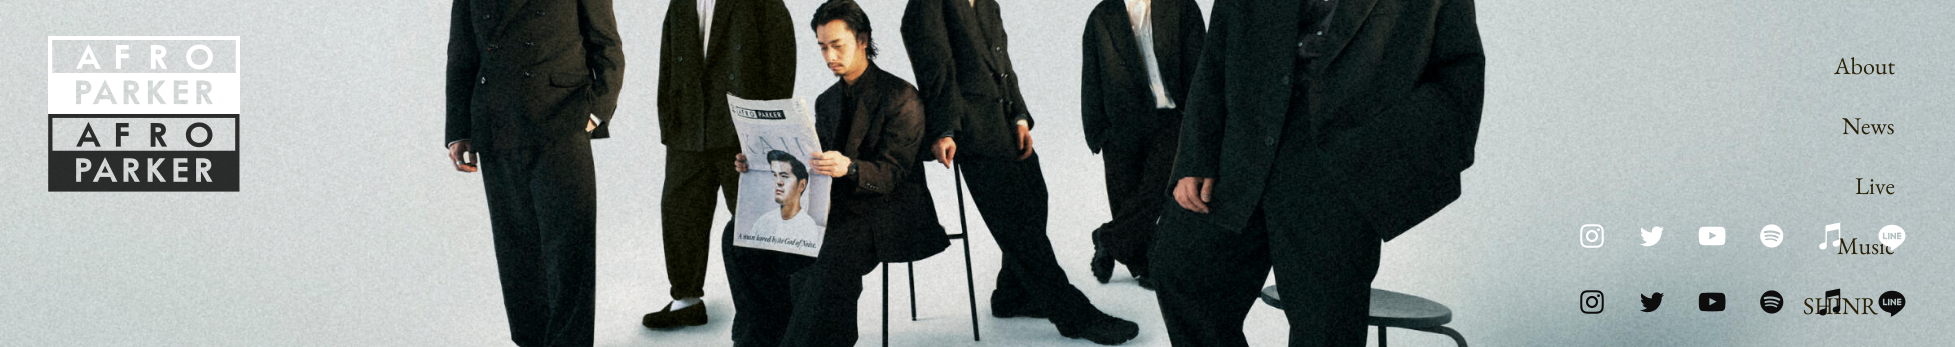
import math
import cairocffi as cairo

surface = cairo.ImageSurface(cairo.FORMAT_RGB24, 1955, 347)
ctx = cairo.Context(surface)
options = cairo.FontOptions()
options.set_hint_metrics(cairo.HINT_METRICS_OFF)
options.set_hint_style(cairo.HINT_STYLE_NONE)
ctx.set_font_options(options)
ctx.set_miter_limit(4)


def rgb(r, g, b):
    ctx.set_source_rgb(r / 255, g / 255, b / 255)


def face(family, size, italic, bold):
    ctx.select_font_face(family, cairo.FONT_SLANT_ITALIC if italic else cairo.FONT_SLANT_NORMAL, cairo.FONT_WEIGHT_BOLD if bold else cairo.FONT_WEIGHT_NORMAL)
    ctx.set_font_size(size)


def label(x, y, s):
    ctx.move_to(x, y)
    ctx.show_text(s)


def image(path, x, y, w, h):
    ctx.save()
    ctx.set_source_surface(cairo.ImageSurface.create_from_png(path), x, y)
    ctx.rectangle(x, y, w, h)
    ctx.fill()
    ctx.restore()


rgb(255, 255, 255)
ctx.paint()
image('image0.png', 0, 0, 1955, 347)
image('image1.png', 48, 36, 192, 78)
image('image2.png', 48, 114, 192, 78)
face('EB Garamond', 24, 0, 0)
rgb(41, 33, 7)
label(1834, 74, 'About')
label(1842, 134, 'News')
label(1855, 194, 'Live')
label(1837, 254, 'Music')
label(1803, 314, 'SHINR')
image('image3.png', 1580, 224, 24, 24)
image('image4.png', 1640, 226, 24, 21)
image('image5.png', 1698, 226, 28, 20)
image('image6.png', 1760, 224, 24, 24)
image('image7.png', 1819, 222, 22, 28)
image('image8.png', 1878, 224, 28, 27)
image('image9.png', 1580, 290, 24, 24)
image('image10.png', 1640, 292, 24, 21)
image('image11.png', 1698, 292, 28, 20)
image('image12.png', 1760, 290, 24, 24)
image('image13.png', 1819, 288, 22, 28)
image('image14.png', 1878, 290, 28, 27)
surface.write_to_png('render.png')
